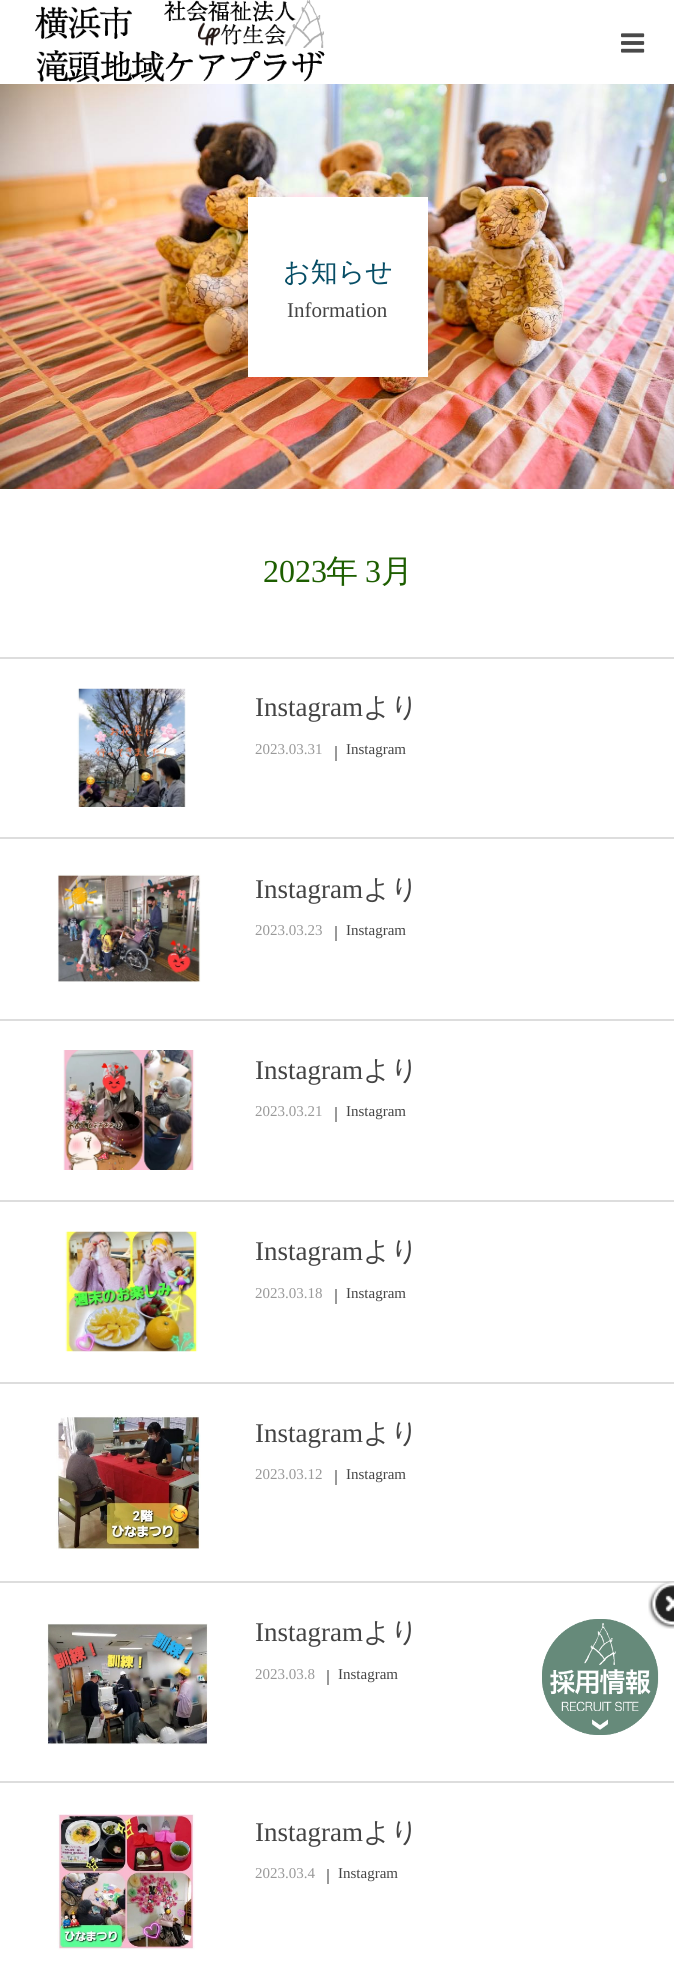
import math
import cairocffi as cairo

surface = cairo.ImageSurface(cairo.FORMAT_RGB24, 674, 1966)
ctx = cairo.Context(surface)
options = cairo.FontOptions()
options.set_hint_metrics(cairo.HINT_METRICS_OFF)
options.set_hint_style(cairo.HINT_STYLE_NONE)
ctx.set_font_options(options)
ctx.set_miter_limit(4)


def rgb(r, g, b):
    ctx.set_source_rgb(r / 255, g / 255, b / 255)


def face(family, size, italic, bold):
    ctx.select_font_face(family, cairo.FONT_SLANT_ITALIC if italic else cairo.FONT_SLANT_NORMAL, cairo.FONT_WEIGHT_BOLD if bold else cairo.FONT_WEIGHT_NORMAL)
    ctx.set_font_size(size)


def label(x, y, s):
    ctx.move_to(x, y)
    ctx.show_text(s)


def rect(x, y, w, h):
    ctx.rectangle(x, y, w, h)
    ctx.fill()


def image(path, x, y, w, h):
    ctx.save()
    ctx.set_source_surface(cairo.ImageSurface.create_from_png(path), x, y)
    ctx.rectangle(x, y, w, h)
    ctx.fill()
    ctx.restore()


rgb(255, 255, 255)
ctx.paint()
image('image0.png', 35, 0, 290, 83)
image('image1.png', 621, 33, 24, 20)
image('image2.png', 0, 84, 674, 405)
rgb(255, 255, 255)
rect(248, 197, 180, 180)
face('WenQuanYi Zen Hei Medium', 27, 0, 0)
rgb(7, 78, 102)
label(283, 281, 'お知らせ')
face('Liberation Serif', 21, 0, 0)
rgb(68, 68, 68)
label(287, 317, 'Information')
face('Liberation Serif', 32, 0, 0)
rgb(29, 94, 0)
label(263, 582, '2023')
face('WenQuanYi Zen Hei Medium', 32, 0, 0)
label(326, 582, '年')
face('Liberation Serif', 32, 0, 0)
label(365, 582, '3')
face('WenQuanYi Zen Hei Medium', 32, 0, 0)
label(381, 582, '月')
rgb(221, 221, 221)
rect(0, 657, 674, 2)
rect(0, 837, 674, 2)
image('image3.png', 77, 688, 109, 119)
face('Liberation Serif', 27, 0, 0)
rgb(68, 68, 68)
label(255, 716, 'Instagram')
face('WenQuanYi Zen Hei Medium', 27, 0, 0)
label(363, 716, 'より')
face('Liberation Serif', 15, 0, 0)
rgb(153, 153, 153)
label(255, 754, '2023.03.31')
rect(335, 746, 2, 15)
rgb(68, 68, 68)
label(346, 754, 'Instagram')
rgb(221, 221, 221)
rect(0, 1019, 674, 2)
image('image4.png', 57, 874, 144, 109)
face('Liberation Serif', 27, 0, 0)
rgb(68, 68, 68)
label(255, 898, 'Instagram')
face('WenQuanYi Zen Hei Medium', 27, 0, 0)
label(363, 898, 'より')
face('Liberation Serif', 15, 0, 0)
rgb(153, 153, 153)
label(255, 935, '2023.03.23')
rect(335, 926, 2, 15)
rgb(68, 68, 68)
label(346, 935, 'Instagram')
rgb(221, 221, 221)
rect(0, 1200, 674, 2)
image('image5.png', 63, 1050, 132, 120)
face('Liberation Serif', 27, 0, 0)
rgb(68, 68, 68)
label(255, 1079, 'Instagram')
face('WenQuanYi Zen Hei Medium', 27, 0, 0)
label(363, 1079, 'より')
face('Liberation Serif', 15, 0, 0)
rgb(153, 153, 153)
label(255, 1116, '2023.03.21')
rect(335, 1107, 2, 15)
rgb(68, 68, 68)
label(346, 1116, 'Instagram')
rgb(221, 221, 221)
rect(0, 1382, 674, 2)
image('image6.png', 65, 1231, 133, 121)
face('Liberation Serif', 27, 0, 0)
rgb(68, 68, 68)
label(255, 1260, 'Instagram')
face('WenQuanYi Zen Hei Medium', 27, 0, 0)
label(363, 1260, 'より')
face('Liberation Serif', 15, 0, 0)
rgb(153, 153, 153)
label(255, 1298, '2023.03.18')
rect(335, 1289, 2, 15)
rgb(68, 68, 68)
label(346, 1298, 'Instagram')
rgb(221, 221, 221)
rect(0, 1581, 674, 2)
image('image7.png', 56, 1415, 145, 135)
face('Liberation Serif', 27, 0, 0)
rgb(68, 68, 68)
label(255, 1442, 'Instagram')
face('WenQuanYi Zen Hei Medium', 27, 0, 0)
label(363, 1442, 'より')
face('Liberation Serif', 15, 0, 0)
rgb(153, 153, 153)
label(255, 1479, '2023.03.12')
rect(335, 1470, 2, 15)
rgb(68, 68, 68)
label(346, 1479, 'Instagram')
rgb(221, 221, 221)
rect(0, 1781, 674, 2)
image('image8.png', 47, 1623, 161, 122)
face('Liberation Serif', 27, 0, 0)
rgb(68, 68, 68)
label(255, 1641, 'Instagram')
face('WenQuanYi Zen Hei Medium', 27, 0, 0)
label(363, 1641, 'より')
face('Liberation Serif', 15, 0, 0)
rgb(153, 153, 153)
label(255, 1679, '2023.03.8')
rect(327, 1670, 2, 15)
rgb(68, 68, 68)
label(338, 1679, 'Instagram')
image('image9.png', 57, 1814, 138, 136)
face('Liberation Serif', 27, 0, 0)
label(255, 1841, 'Instagram')
face('WenQuanYi Zen Hei Medium', 27, 0, 0)
label(363, 1841, 'より')
face('Liberation Serif', 15, 0, 0)
rgb(153, 153, 153)
label(255, 1878, '2023.03.4')
rect(327, 1869, 2, 15)
rgb(68, 68, 68)
label(338, 1878, 'Instagram')
image('image11.png', 542, 1619, 117, 116)
image('image10.png', 648, 1581, 26, 48)
surface.write_to_png('render.png')
